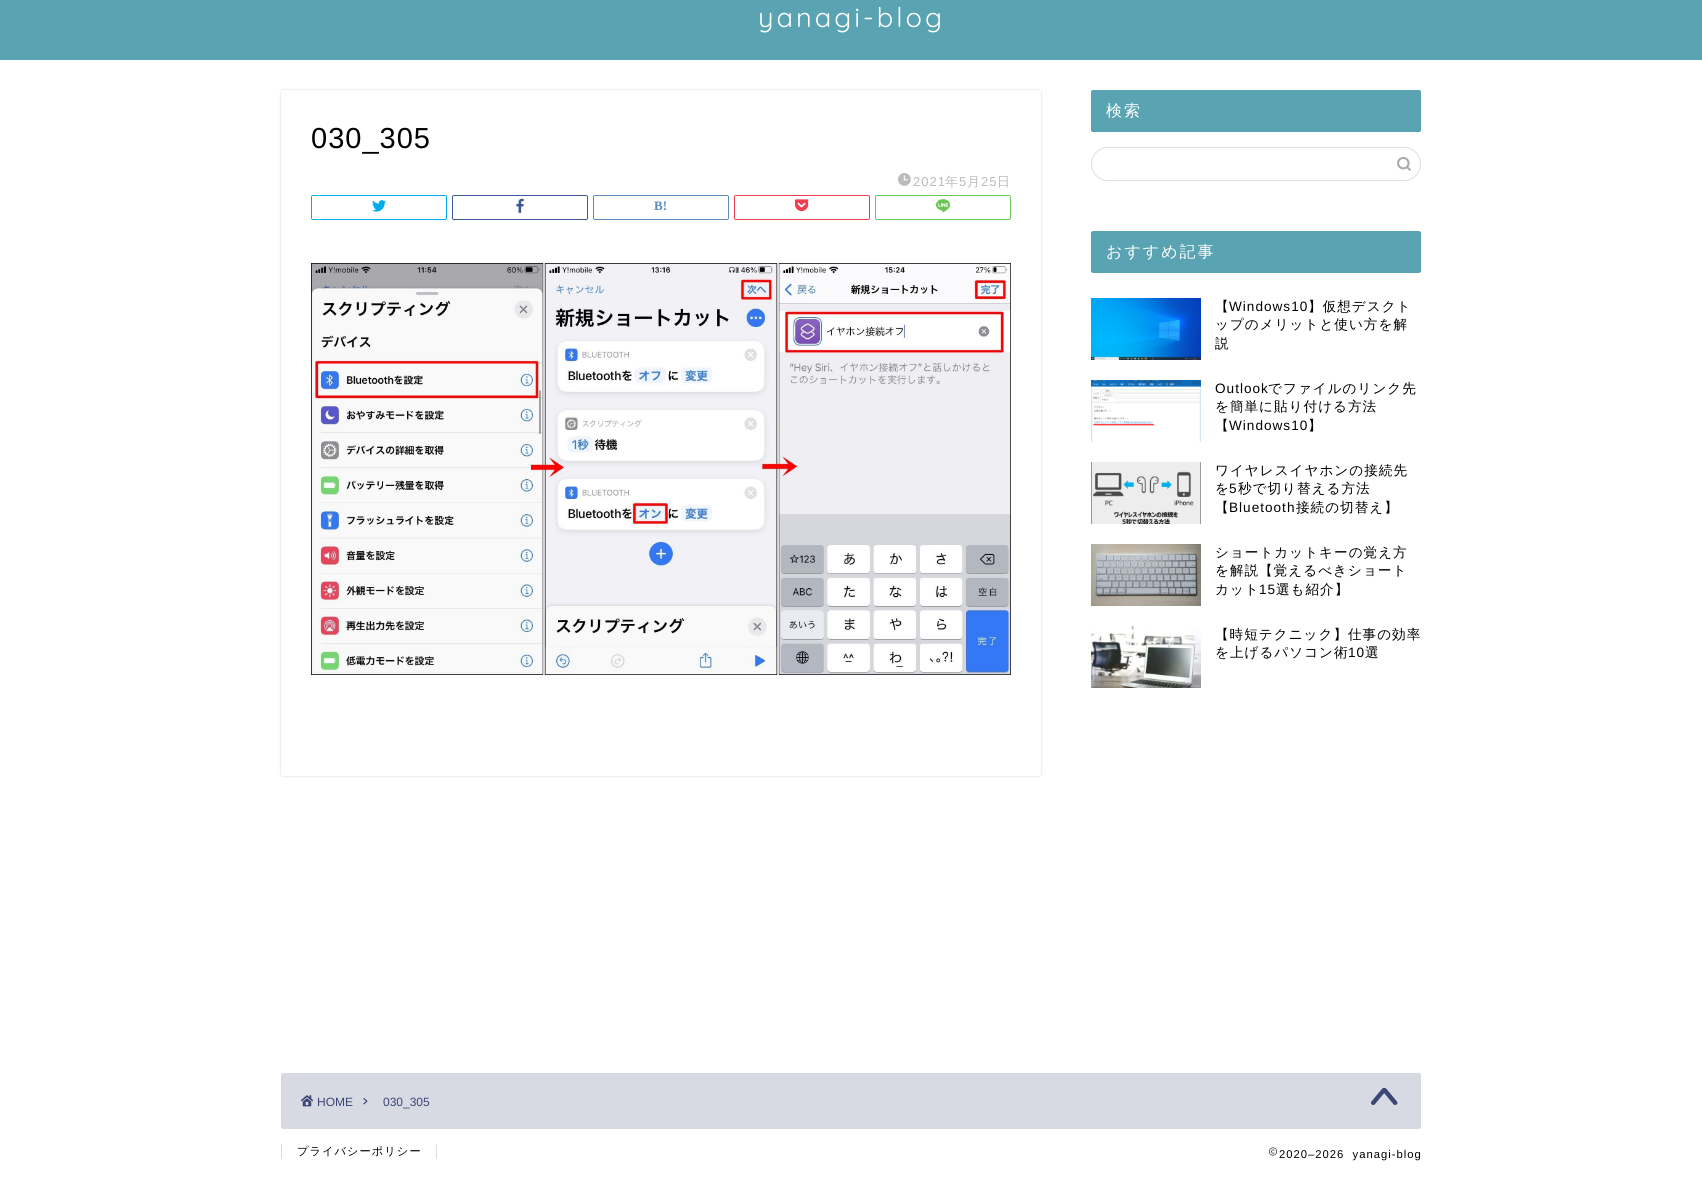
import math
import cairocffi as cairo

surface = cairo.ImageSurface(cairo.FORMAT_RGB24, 1702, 1177)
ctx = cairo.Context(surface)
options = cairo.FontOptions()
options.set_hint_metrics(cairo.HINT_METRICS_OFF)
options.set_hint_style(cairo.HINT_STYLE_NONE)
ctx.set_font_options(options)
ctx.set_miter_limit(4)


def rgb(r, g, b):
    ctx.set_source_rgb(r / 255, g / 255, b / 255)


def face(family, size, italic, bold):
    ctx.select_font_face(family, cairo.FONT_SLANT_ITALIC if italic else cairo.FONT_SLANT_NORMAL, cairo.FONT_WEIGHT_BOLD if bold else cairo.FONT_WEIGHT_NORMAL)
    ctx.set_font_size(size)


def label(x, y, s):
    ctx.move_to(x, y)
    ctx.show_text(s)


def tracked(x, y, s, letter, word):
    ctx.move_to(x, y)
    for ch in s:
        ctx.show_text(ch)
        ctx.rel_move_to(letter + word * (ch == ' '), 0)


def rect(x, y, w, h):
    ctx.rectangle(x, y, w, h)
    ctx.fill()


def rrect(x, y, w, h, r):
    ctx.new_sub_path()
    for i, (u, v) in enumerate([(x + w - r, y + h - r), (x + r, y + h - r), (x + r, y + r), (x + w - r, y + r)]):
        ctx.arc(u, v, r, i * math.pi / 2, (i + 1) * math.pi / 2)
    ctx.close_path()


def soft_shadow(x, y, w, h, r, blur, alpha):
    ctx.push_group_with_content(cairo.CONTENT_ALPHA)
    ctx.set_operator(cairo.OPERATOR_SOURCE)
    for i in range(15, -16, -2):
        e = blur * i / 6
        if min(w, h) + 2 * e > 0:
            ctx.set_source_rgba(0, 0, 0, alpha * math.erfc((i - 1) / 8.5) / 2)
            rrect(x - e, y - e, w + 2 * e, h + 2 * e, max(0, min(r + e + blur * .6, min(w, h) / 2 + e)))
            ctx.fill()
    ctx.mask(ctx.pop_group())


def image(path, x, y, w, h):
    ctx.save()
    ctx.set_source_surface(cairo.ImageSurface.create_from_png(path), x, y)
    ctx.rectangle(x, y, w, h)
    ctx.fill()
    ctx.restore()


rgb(255, 255, 255)
ctx.paint()
rgb(89, 163, 178)
rect(0, 0, 1702, 60)
face('Quicksand Light', 27.25, 0, 0)
rgb(255, 255, 255)
tracked(758, 27, 'yanagi-blog', 3, 0)
rgb(0, 0, 0)
soft_shadow(281, 90, 760, 686, 2, 1, 0.18)
rgb(255, 255, 255)
rrect(281, 90, 760, 686, 2)
ctx.fill()
face('Liberation Sans', 29, 0, 0)
rgb(0, 0, 0)
tracked(311, 148, '030_305', 1, 0)
image('image0.png', 898, 173, 13, 13)
face('Liberation Sans', 13, 0, 0)
rgb(187, 187, 187)
tracked(913, 186, '2021', 1, 0)
face('WenQuanYi Zen Hei Medium', 13, 0, 0)
tracked(945, 186, '年', 1, 0)
face('Liberation Sans', 13, 0, 0)
tracked(959, 186, '5', 1, 0)
face('WenQuanYi Zen Hei Medium', 13, 0, 0)
tracked(967, 186, '月', 1, 0)
face('Liberation Sans', 13, 0, 0)
tracked(981, 186, '25', 1, 0)
face('WenQuanYi Zen Hei Medium', 13, 0, 0)
tracked(997, 186, '日', 1, 0)
rrect(311.5, 195.5, 135, 24, 1.5)
rgb(0, 172, 238)
ctx.set_line_width(1)
ctx.stroke()
image('image1.png', 372, 200, 14, 12)
rrect(452.5, 195.5, 135, 24, 1.5)
rgb(59, 89, 152)
ctx.stroke()
image('image2.png', 516, 198, 8, 15)
rrect(593.5, 195.5, 135, 24, 1.5)
rgb(93, 138, 193)
ctx.stroke()
face('Liberation Serif', 13, 0, 1)
label(654, 210, 'B!')
rrect(734.5, 195.5, 135, 24, 1.5)
rgb(240, 62, 81)
ctx.stroke()
image('image3.png', 795, 199, 14, 13)
rrect(875.5, 195.5, 135, 24, 1.5)
rgb(108, 198, 85)
ctx.stroke()
image('image4.png', 936, 199, 15, 14)
image('image5.png', 311, 263, 700, 412)
rgb(89, 163, 178)
rrect(1091, 90, 330, 42, 2)
ctx.fill()
face('WenQuanYi Zen Hei Medium', 16, 0, 0)
rgb(255, 255, 255)
tracked(1106, 116, '検索', 2, 0)
rrect(1091.5, 147.5, 329, 33, 16.5)
rgb(221, 221, 221)
ctx.stroke()
image('image6.png', 1397, 156, 14, 15)
rgb(89, 163, 178)
rrect(1091, 231, 330, 42, 2)
ctx.fill()
rgb(255, 255, 255)
tracked(1106, 257, 'おすすめ記事', 2, 0)
image('image7.png', 1091, 298, 110, 62)
face('WenQuanYi Zen Hei Medium', 13.6, 0, 0)
rgb(0, 0, 0)
tracked(1215, 311, '【', 1, 0)
face('Liberation Sans', 13.6, 0, 0)
tracked(1229, 311, 'Windows10', 1, 0)
face('WenQuanYi Zen Hei Medium', 13.6, 0, 0)
tracked(1308, 311, '】仮想デスクト', 1, 0)
tracked(1215, 329, 'ップのメリットと使い方を解', 1, 0)
tracked(1215, 348, '説', 1, 0)
image('image8.png', 1091, 380, 110, 62)
face('Liberation Sans', 13.6, 0, 0)
tracked(1215, 393, 'Outlook', 1, 0)
face('WenQuanYi Zen Hei Medium', 13.6, 0, 0)
tracked(1268, 393, 'でファイルのリンク先', 1, 0)
tracked(1215, 411, 'を簡単に貼り付ける方法', 1, 0)
tracked(1215, 430, '【', 1, 0)
face('Liberation Sans', 13.6, 0, 0)
tracked(1229, 430, 'Windows10', 1, 0)
face('WenQuanYi Zen Hei Medium', 13.6, 0, 0)
tracked(1308, 430, '】', 1, 0)
image('image9.png', 1091, 462, 110, 62)
tracked(1215, 475, 'ワイヤレスイヤホンの接続先', 1, 0)
tracked(1215, 493, 'を', 1, 0)
face('Liberation Sans', 13.6, 0, 0)
tracked(1229, 493, '5', 1, 0)
face('WenQuanYi Zen Hei Medium', 13.6, 0, 0)
tracked(1238, 493, '秒で切り替える方法', 1, 0)
tracked(1215, 512, '【', 1, 0)
face('Liberation Sans', 13.6, 0, 0)
tracked(1229, 512, 'Bluetooth', 1, 0)
face('WenQuanYi Zen Hei Medium', 13.6, 0, 0)
tracked(1296, 512, '接続の切替え】', 1, 0)
image('image10.png', 1091, 544, 110, 62)
tracked(1215, 557, 'ショートカットキーの覚え方', 1, 0)
tracked(1215, 575, 'を解説【覚えるべきショート', 1, 0)
tracked(1215, 594, 'カット', 1, 0)
face('Liberation Sans', 13.6, 0, 0)
tracked(1259, 594, '15', 1, 0)
face('WenQuanYi Zen Hei Medium', 13.6, 0, 0)
tracked(1276, 594, '選も紹介】', 1, 0)
image('image11.png', 1091, 626, 110, 62)
tracked(1215, 639, '【時短テクニック】仕事の効率', 1, 0)
tracked(1215, 657, 'を上げるパソコン術', 1, 0)
face('Liberation Sans', 13.6, 0, 0)
tracked(1348, 657, '10', 1, 0)
face('WenQuanYi Zen Hei Medium', 13.6, 0, 0)
tracked(1365, 657, '選', 1, 0)
rgb(216, 218, 227)
rrect(281, 1073, 1140, 56, 2)
ctx.fill()
image('image12.png', 301, 1095, 12, 12)
face('Liberation Sans', 12, 0, 0)
rgb(59, 70, 117)
label(317, 1106, 'HOME')
image('image13.png', 363, 1098, 5, 7)
label(383, 1106, '030_305')
image('image14.png', 1371, 1087, 27, 18)
rgb(221, 221, 221)
rect(436, 1144, 1, 15)
rect(281, 1144, 1, 15)
face('WenQuanYi Zen Hei Medium', 11.25, 0, 0)
rgb(0, 0, 0)
tracked(297, 1155, 'プライバシーポリシー', 1, 0)
image('image15.png', 1269, 1147, 8, 9)
face('Liberation Sans', 11.25, 0, 0)
tracked(1279, 1158, '2020–2026  yanagi-blog', 1, 0)
surface.write_to_png('render.png')
